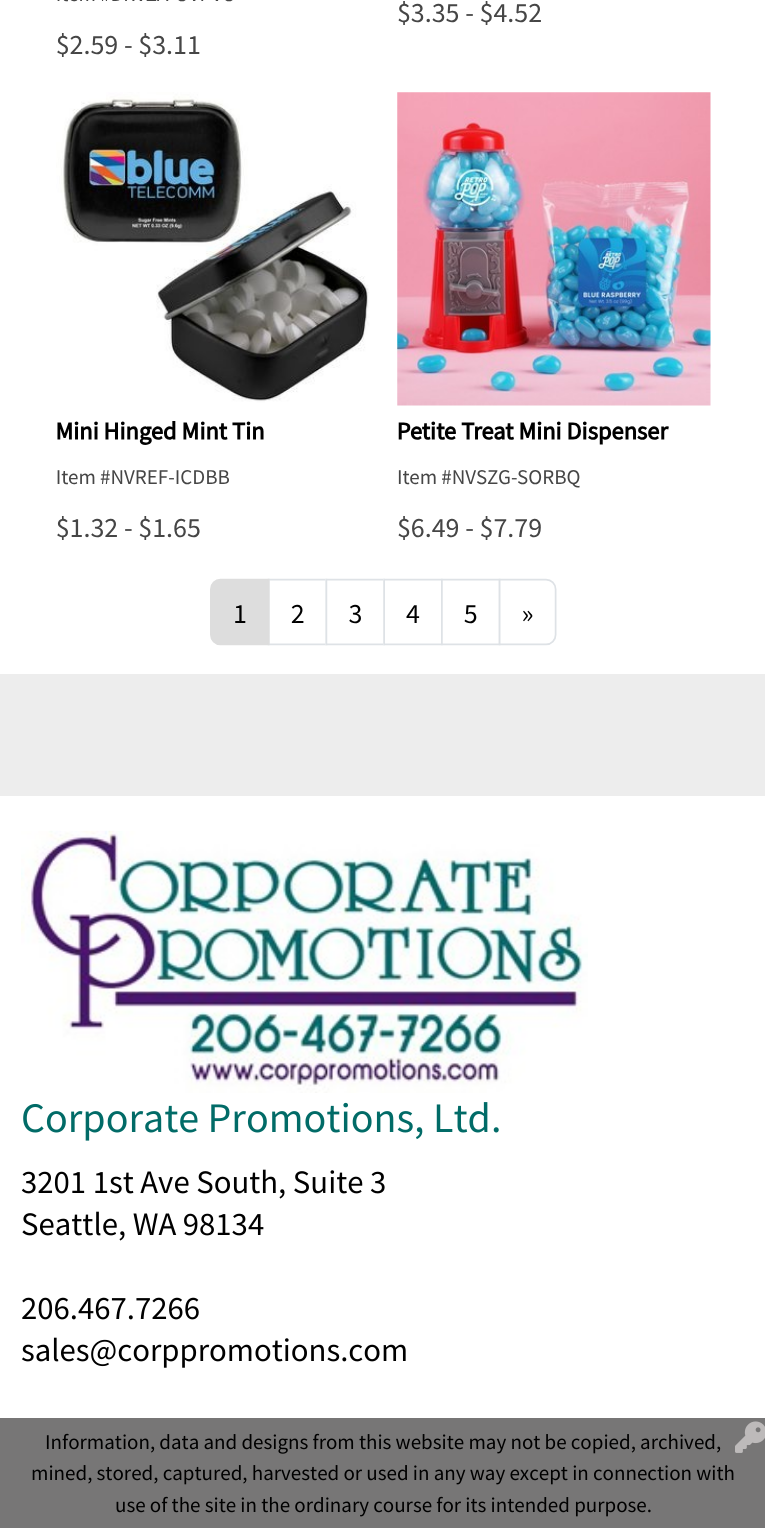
import math
import cairocffi as cairo

surface = cairo.ImageSurface(cairo.FORMAT_RGB24, 765, 1528)
ctx = cairo.Context(surface)
options = cairo.FontOptions()
options.set_hint_metrics(cairo.HINT_METRICS_OFF)
options.set_hint_style(cairo.HINT_STYLE_NONE)
ctx.set_font_options(options)
ctx.set_miter_limit(4)


def rgb(r, g, b):
    ctx.set_source_rgb(r / 255, g / 255, b / 255)


def face(family, size, italic, bold):
    ctx.select_font_face(family, cairo.FONT_SLANT_ITALIC if italic else cairo.FONT_SLANT_NORMAL, cairo.FONT_WEIGHT_BOLD if bold else cairo.FONT_WEIGHT_NORMAL)
    ctx.set_font_size(size)


def label(x, y, s):
    ctx.move_to(x, y)
    ctx.show_text(s)


def rect(x, y, w, h):
    ctx.rectangle(x, y, w, h)
    ctx.fill()


def image(path, x, y, w, h):
    ctx.save()
    ctx.set_source_surface(cairo.ImageSurface.create_from_png(path), x, y)
    ctx.rectangle(x, y, w, h)
    ctx.fill()
    ctx.restore()


rgb(255, 255, 255)
ctx.paint()
image('image0.png', 56, 0, 655, 646)
rgb(237, 237, 237)
rect(0, 674, 765, 122)
image('image1.png', 21, 830, 567, 263)
face('Source Sans Pro', 42, 0, 0)
rgb(1, 107, 103)
label(21, 1132, 'Corporate Promotions, Ltd.')
face('Source Sans Pro', 32.75, 0, 0)
rgb(0, 0, 0)
label(21, 1193, '3201 1st Ave South, Suite 3')
label(21, 1235, 'Seattle, WA 98134')
label(21, 1319, '206.467.7266')
label(21, 1361, 'sales@corppromotions.com')
rgb(119, 118, 118)
rect(0, 1418, 765, 110)
face('Source Sans Pro', 21, 0, 0)
rgb(0, 0, 0)
label(45, 1449, 'Information, data and designs from this website may not be copied, archived,')
label(31, 1480, 'mined, stored, captured, harvested or used in any way except in connection with')
label(115, 1512, 'use of the site in the ordinary course for its intended purpose.')
image('image2.png', 735, 1421, 30, 32)
surface.write_to_png('render.png')
